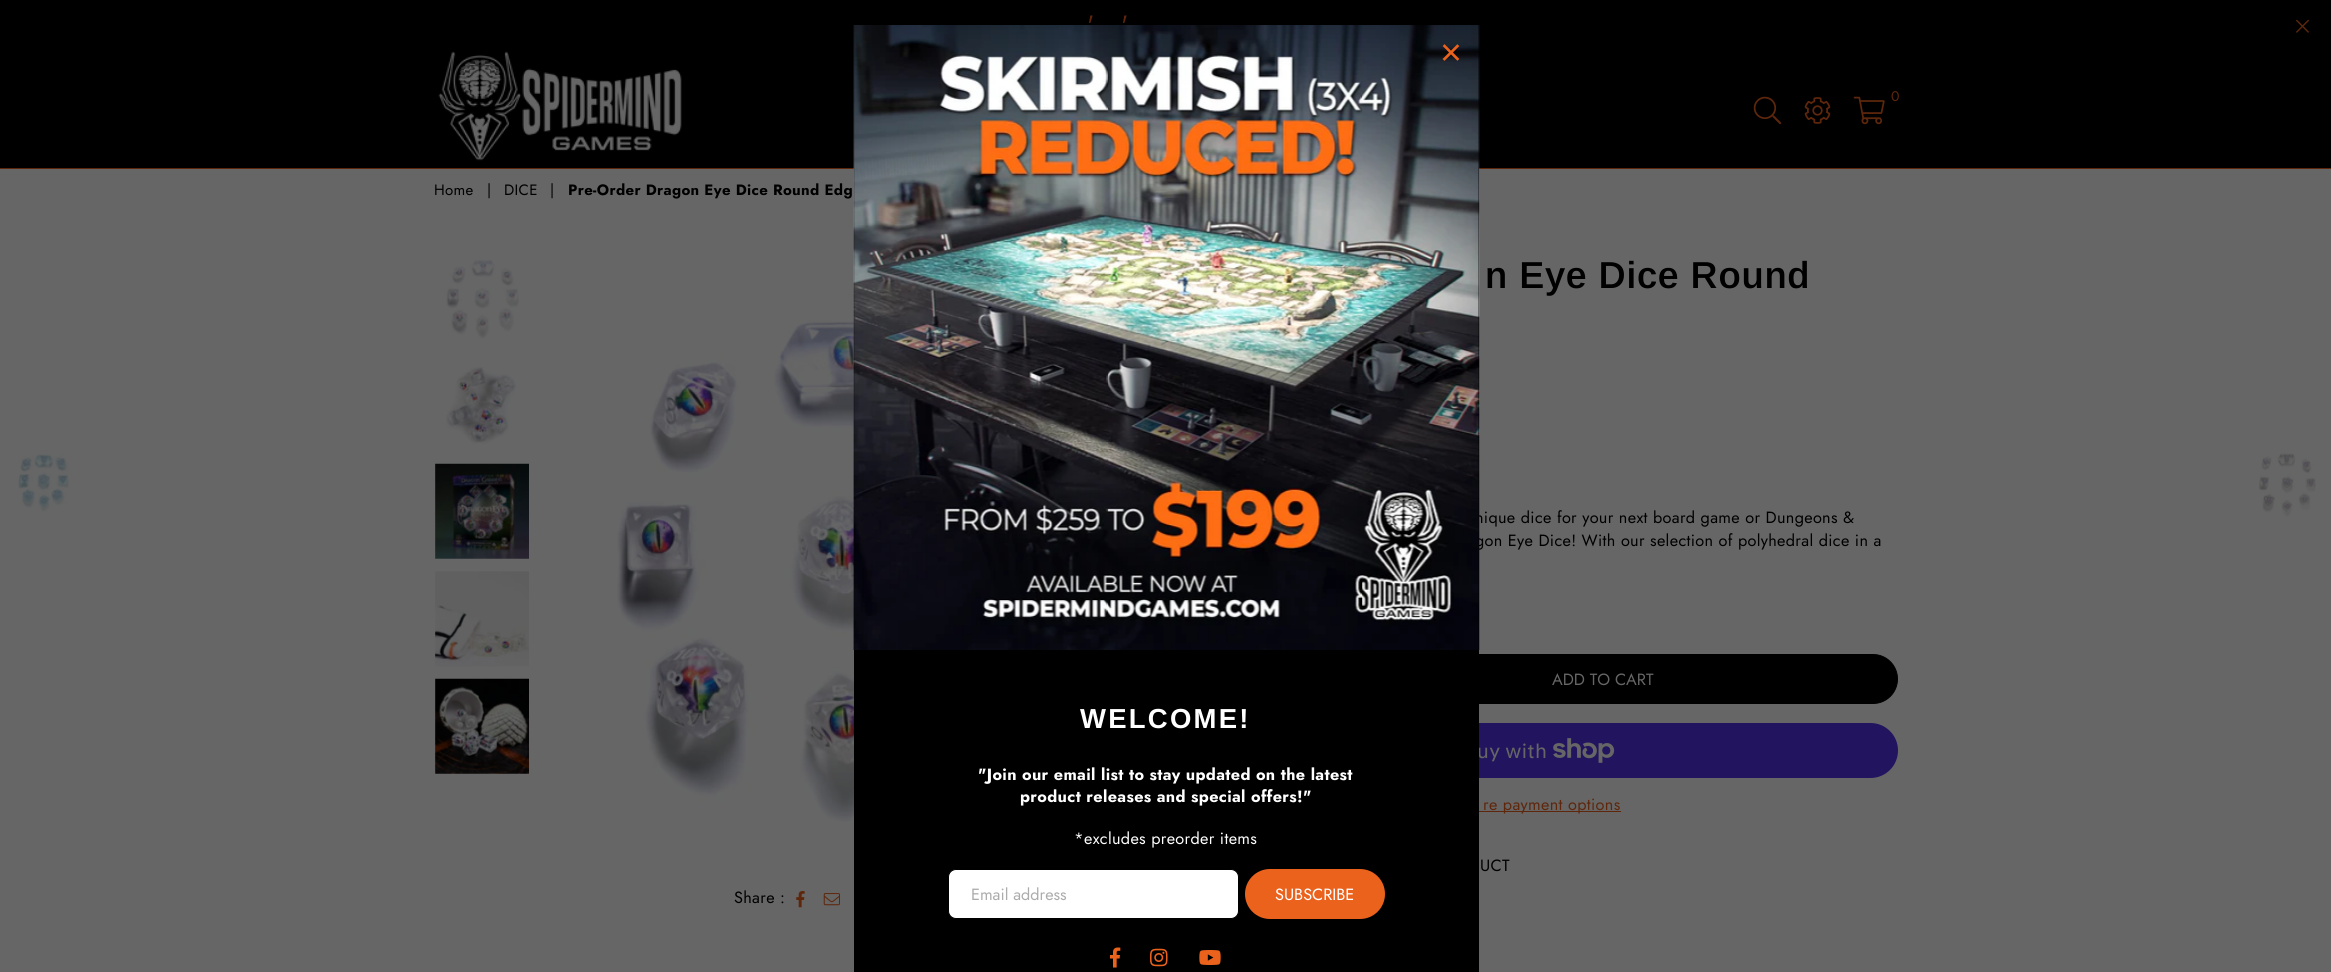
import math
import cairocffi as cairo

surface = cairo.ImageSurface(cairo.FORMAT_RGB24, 2331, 972)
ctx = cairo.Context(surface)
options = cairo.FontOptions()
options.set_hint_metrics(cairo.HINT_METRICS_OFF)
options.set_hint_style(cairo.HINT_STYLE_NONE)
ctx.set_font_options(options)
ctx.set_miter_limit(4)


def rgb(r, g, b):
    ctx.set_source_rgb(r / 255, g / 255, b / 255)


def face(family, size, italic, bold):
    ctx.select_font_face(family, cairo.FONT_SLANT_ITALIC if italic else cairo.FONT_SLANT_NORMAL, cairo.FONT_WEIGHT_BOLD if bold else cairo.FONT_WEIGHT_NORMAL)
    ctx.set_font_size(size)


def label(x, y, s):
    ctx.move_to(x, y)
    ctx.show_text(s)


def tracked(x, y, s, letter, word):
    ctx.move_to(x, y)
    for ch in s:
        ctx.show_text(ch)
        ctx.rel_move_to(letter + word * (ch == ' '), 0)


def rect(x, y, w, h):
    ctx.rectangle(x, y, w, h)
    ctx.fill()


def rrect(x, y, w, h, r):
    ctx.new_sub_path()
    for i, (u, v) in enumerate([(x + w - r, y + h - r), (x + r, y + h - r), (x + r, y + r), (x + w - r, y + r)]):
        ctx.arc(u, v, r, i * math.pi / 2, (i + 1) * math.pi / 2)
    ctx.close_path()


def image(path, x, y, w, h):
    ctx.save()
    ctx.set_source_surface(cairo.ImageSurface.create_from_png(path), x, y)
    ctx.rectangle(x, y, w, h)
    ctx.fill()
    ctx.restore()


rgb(102, 102, 102)
ctx.paint()
rgb(0, 0, 0)
rect(0, 0, 2331, 168)
face('Jost', 25, 0, 0)
rgb(94, 39, 12)
tracked(1087, 33, '\'', 1, 0)
tracked(1121, 33, '\'', 1, 0)
image('image0.png', 2296, 19, 13, 14)
rect(0, 168, 2331, 1)
rgb(0, 0, 0)
rrect(1310.5, 654.5, 587, 49, 24.5)
ctx.fill_preserve()
ctx.set_line_width(1)
ctx.stroke()
rgb(34, 20, 94)
rrect(1185, 723, 713, 55, 27.5)
ctx.fill()
face('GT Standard', 20, 0, 0)
rgb(102, 102, 102)
tracked(1477, 758, 'uy with', 0.33, 0)
rgb(0, 0, 0)
rect(854, 168, 625, 804)
face('Jost', 16.25, 0, 0)
tracked(1475, 523, 'nique dice for your next board game or Dungeons &', 0.33, 0)
tracked(1475, 546, 'gon Eye Dice! With our selection of polyhedral dice in a', 0.33, 0)
image('image16.png', 617, 319, 237, 503)
image('image1.png', 853, 25, 627, 625)
face('Liberation Sans', 37.5, 0, 0)
rgb(235, 98, 29)
label(1440, 65, '×')
face('Arimo', 27.5, 0, 1)
rgb(255, 255, 255)
tracked(1080, 728, 'WELCOME!', 2.25, 0)
face('Jost', 16.25, 0, 1)
tracked(978, 780, '"Join our email list to stay updated on the latest', 0.33, 0)
tracked(1020, 802, 'product releases and special offers!"', 0.33, 0)
face('Jost', 16.25, 0, 0)
tracked(1074, 844, '*excludes preorder items', 0.33, 0)
rrect(948.5, 869.5, 290, 49, 7.5)
ctx.fill_preserve()
rgb(0, 0, 0)
ctx.stroke()
rgb(172, 172, 172)
label(971, 900, 'Email address')
rgb(235, 98, 29)
rrect(1245, 869, 140, 50, 25)
ctx.fill()
rgb(255, 255, 255)
label(1275, 900, 'SUBSCRIBE')
image('image2.png', 1110, 947, 11, 21)
image('image3.png', 1150, 948, 18, 19)
image('image4.png', 1199, 950, 22, 15)
image('image5.png', 438, 51, 244, 110)
image('image6.png', 1753, 96, 29, 29)
image('image7.png', 1804, 97, 27, 27)
image('image8.png', 1853, 96, 32, 29)
face('Jost', 14, 0, 0)
rgb(94, 39, 12)
tracked(1891, 101, '0', 0.33, 0)
face('Jost', 15, 0, 0)
rgb(0, 0, 0)
tracked(434, 195, 'Home', 0.33, 0)
tracked(487, 195, '|', 0.33, 0)
tracked(504, 195, 'DICE', 0.33, 0)
tracked(550, 195, '|', 0.33, 0)
face('Jost', 15, 0, 1)
tracked(568, 195, 'Pre-Order Dragon Eye Dice Round Edg', 0.33, 0)
image('image9.png', 18, 454, 51, 58)
face('Arimo SemiBold', 37.5, 0, 0)
tracked(1485, 288, 'n Eye Dice Round', 0.75, 0)
face('Jost', 16.25, 0, 0)
rgb(102, 102, 102)
label(1552, 685, 'ADD TO CART')
image('image10.png', 1553, 738, 62, 25)
rgb(94, 39, 12)
rect(1479, 811, 142, 1)
tracked(1483, 810, 're payment options', 0.33, 0)
rgb(0, 0, 0)
tracked(1480, 871, 'UCT', 0.33, 0)
image('image11.png', 446, 259, 73, 80)
image('image12.png', 446, 367, 71, 77)
image('image13.png', 435, 463, 94, 96)
image('image14.png', 435, 571, 94, 96)
image('image15.png', 435, 678, 94, 96)
tracked(734, 903, 'Share :', 0.33, 0)
image('image17.png', 796, 891, 9, 17)
image('image18.png', 823, 893, 17, 13)
image('image19.png', 2259, 453, 57, 64)
surface.write_to_png('render.png')
